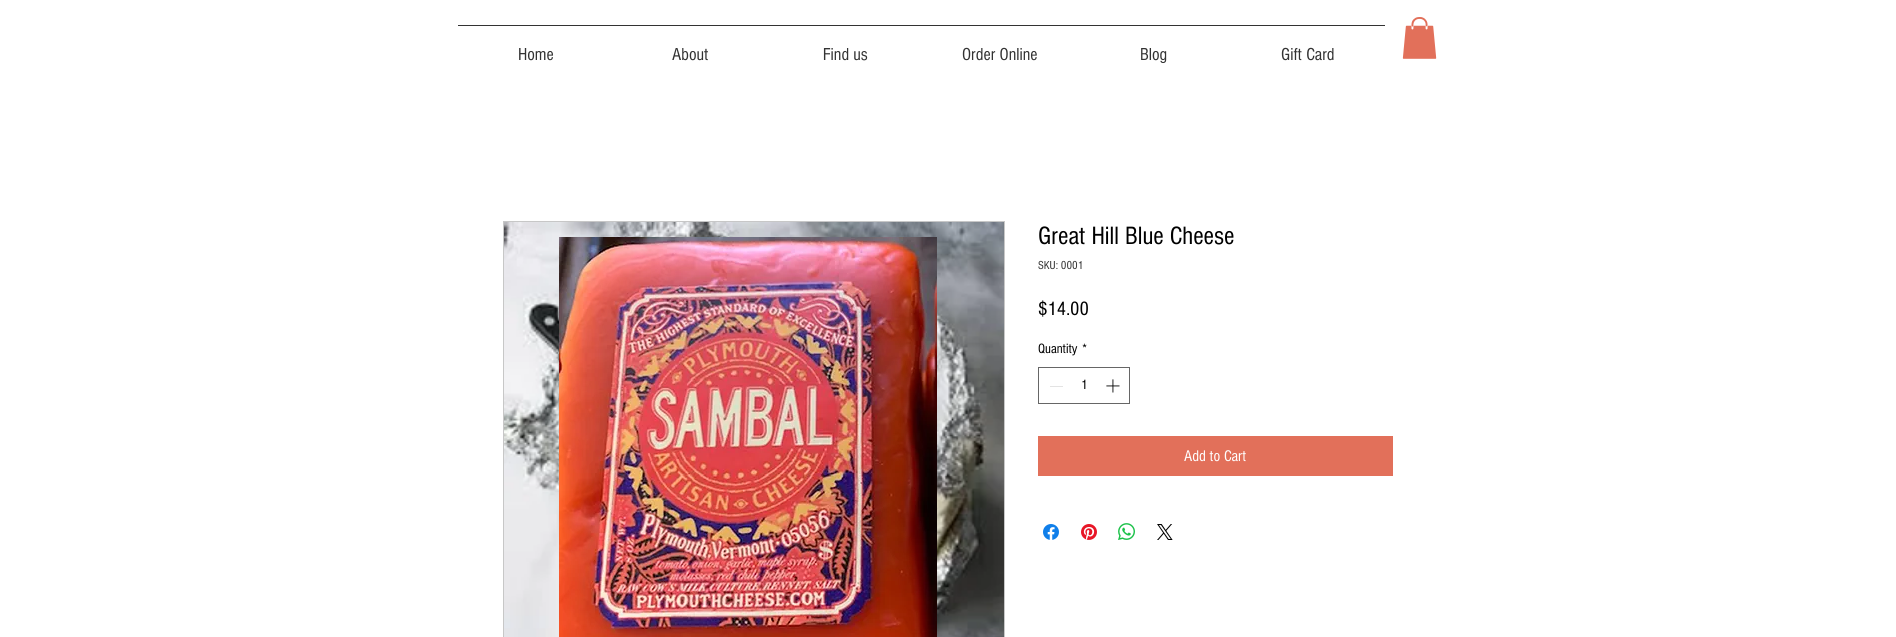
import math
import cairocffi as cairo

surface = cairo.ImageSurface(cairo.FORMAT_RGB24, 1896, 637)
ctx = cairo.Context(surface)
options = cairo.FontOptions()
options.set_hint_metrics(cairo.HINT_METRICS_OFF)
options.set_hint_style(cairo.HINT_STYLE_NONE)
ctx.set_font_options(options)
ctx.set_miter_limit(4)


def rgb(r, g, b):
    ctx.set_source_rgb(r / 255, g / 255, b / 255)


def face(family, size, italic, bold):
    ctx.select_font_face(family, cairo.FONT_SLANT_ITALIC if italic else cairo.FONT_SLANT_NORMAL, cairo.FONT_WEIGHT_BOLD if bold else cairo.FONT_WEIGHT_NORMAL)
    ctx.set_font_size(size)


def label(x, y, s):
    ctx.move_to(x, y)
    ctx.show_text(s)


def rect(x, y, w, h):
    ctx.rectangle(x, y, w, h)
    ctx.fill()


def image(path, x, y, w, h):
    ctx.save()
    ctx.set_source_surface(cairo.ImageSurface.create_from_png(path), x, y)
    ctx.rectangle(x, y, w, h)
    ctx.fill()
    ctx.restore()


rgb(255, 255, 255)
ctx.paint()
rgb(51, 51, 51)
rect(458, 25, 927, 1)
face('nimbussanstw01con', 18, 0, 0)
label(518, 60, 'Home')
label(672, 60, 'About')
label(823, 60, 'Find us')
label(962, 60, 'Order Online')
label(1140, 60, 'Blog')
label(1281, 60, 'Gift Card')
image('image0.png', 1402, 17, 35, 42)
ctx.rectangle(503.5, 221.5, 501, 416)
rgb(199, 199, 199)
ctx.set_line_width(1)
ctx.stroke()
image('image2.png', 504, 222, 500, 415)
image('image1.png', 559, 237, 378, 400)
face('nimbussanstw01con', 26, 0, 0)
rgb(0, 0, 0)
label(1038, 244, 'Great Hill Blue Cheese')
face('nimbussanstw01con', 12, 0, 0)
rgb(51, 51, 51)
label(1038, 269, 'SKU: 0001')
face('nimbussanstw01con', 20, 0, 0)
rgb(0, 0, 0)
label(1038, 315, '$14.00')
face('nimbussanstw01con', 14, 0, 0)
label(1038, 353, 'Quantity')
label(1082, 353, '*')
ctx.rectangle(1038.5, 367.5, 91, 36)
rgb(102, 102, 102)
ctx.stroke()
rgb(227, 227, 227)
rect(1050, 386, 13, 1)
rgb(0, 0, 0)
label(1081, 389, '1')
image('image3.png', 1106, 379, 14, 14)
rgb(226, 112, 90)
rect(1038, 436, 355, 40)
face('nimbussanstw01con', 16, 0, 0)
rgb(255, 255, 255)
label(1184, 461, 'Add to Cart')
image('image4.png', 1043, 524, 16, 16)
image('image5.png', 1081, 524, 16, 16)
image('image6.png', 1118, 523, 17, 17)
image('image7.png', 1157, 524, 16, 16)
surface.write_to_png('render.png')
